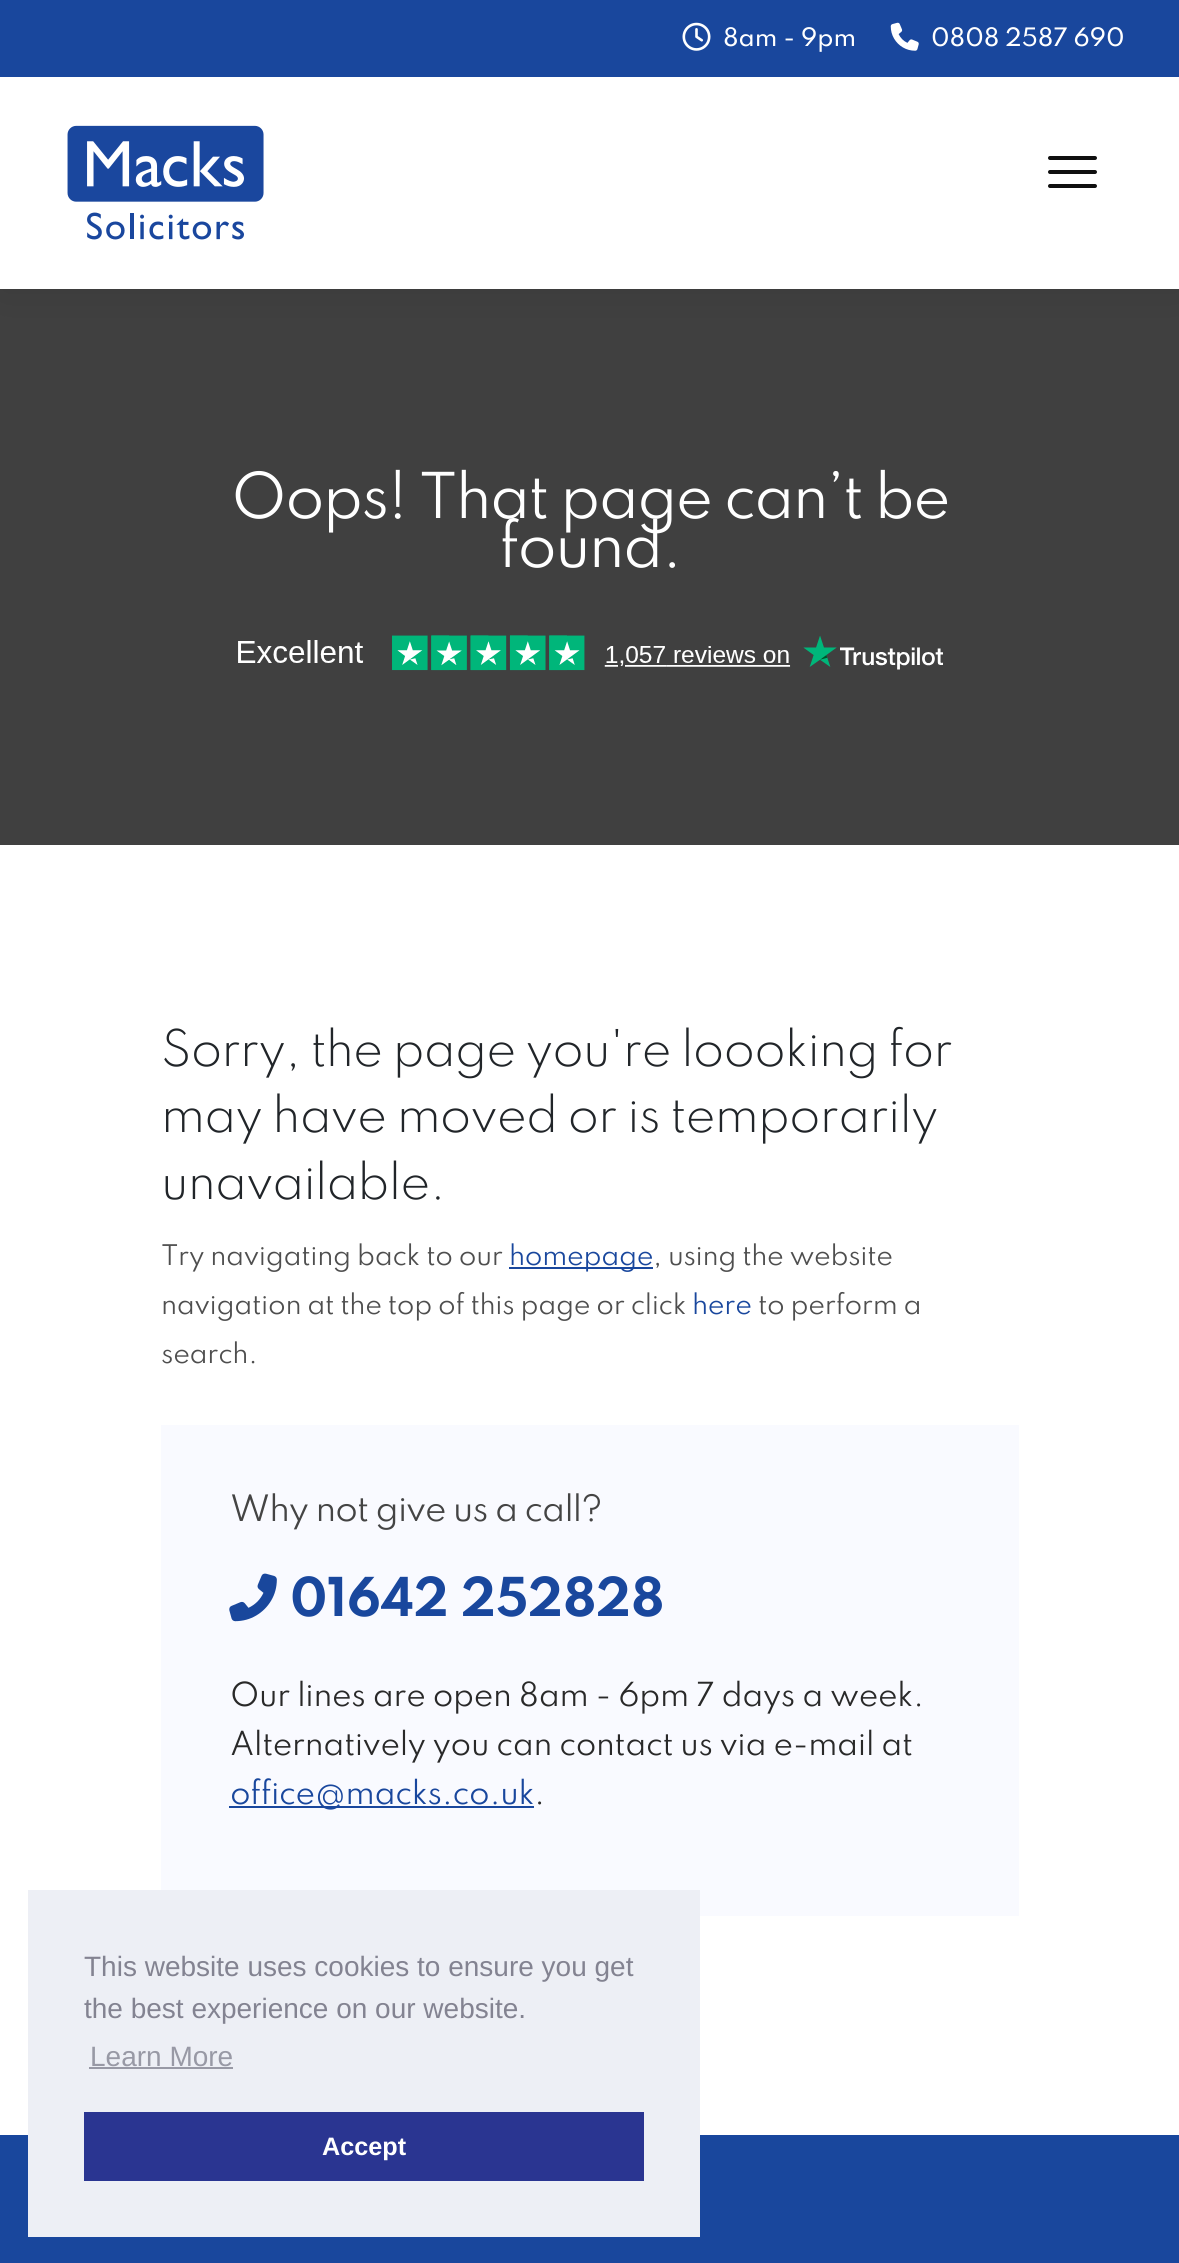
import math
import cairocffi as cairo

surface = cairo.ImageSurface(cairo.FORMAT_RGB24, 1179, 2263)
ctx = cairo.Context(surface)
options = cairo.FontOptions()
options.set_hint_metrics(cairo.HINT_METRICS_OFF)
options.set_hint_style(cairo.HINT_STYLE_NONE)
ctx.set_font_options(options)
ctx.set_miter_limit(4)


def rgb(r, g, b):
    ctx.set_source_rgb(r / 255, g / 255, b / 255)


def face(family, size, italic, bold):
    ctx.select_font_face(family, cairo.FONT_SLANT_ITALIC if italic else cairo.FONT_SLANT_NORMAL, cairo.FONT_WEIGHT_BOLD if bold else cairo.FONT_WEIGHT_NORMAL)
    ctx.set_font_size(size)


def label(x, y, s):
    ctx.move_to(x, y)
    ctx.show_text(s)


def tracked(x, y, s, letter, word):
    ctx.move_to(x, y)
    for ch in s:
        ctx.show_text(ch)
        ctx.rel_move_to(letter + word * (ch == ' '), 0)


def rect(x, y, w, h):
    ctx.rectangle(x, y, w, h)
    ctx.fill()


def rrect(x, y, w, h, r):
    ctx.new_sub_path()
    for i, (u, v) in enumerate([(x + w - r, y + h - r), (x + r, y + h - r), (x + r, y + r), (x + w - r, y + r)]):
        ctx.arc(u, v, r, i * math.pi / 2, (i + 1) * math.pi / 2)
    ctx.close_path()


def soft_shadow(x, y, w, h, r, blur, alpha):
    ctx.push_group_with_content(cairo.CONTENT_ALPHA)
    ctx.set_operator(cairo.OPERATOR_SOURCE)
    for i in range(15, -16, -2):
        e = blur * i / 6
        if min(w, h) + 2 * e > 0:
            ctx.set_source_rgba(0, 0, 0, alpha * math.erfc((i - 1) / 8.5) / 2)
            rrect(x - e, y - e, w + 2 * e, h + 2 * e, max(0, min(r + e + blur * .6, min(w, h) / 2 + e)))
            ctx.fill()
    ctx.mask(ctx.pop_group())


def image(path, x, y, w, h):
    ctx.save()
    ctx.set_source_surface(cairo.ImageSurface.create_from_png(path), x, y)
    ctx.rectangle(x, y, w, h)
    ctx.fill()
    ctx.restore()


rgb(255, 255, 255)
ctx.paint()
rgb(64, 64, 64)
rect(0, 289, 1179, 556)
rgb(0, 0, 0)
soft_shadow(2, 2, 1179, 289, 0, 17.5, 0.1)
rgb(255, 255, 255)
rect(0, 77, 1179, 212)
rgb(25, 71, 157)
rect(0, 0, 1179, 77)
image('image0.png', 682, 22, 29, 29)
face('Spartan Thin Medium', 22.5, 0, 0)
rgb(255, 255, 255)
label(723, 46, '8am - 9pm')
image('image1.png', 890, 22, 29, 29)
label(931, 46, '0808 2587 690')
image('image2.png', 67, 125, 197, 115)
face('Spartan Thin', 56, 0, 0)
tracked(231, 518, 'Oops! That page can’t be', -1.75, 0)
tracked(499, 567, 'found.', -1.75, 0)
image('image3.png', 238, 635, 705, 36)
face('Spartan Thin Light', 44.75, 0, 0)
rgb(33, 37, 41)
tracked(161, 1066, 'Sorry, the page you\'re loooking for', -0.9, 0)
tracked(161, 1132, 'may have moved or is temporarily', -0.9, 0)
tracked(161, 1199, 'unavailable.', -0.9, 0)
face('Spartan Thin', 25.2, 0, 0)
rgb(78, 78, 78)
tracked(161, 1265, 'Try navigating back to our', -0.35, 0)
rgb(25, 71, 157)
rect(509, 1267, 144, 2)
tracked(509, 1265, 'homepage', -0.35, 0)
rgb(78, 78, 78)
tracked(653, 1265, ', using the website', -0.35, 0)
tracked(161, 1314, 'navigation at the top of this page or click', -0.35, 0)
rgb(25, 71, 157)
tracked(692, 1314, 'here', -0.35, 0)
rgb(78, 78, 78)
tracked(758, 1314, 'to perform a', -0.35, 0)
tracked(161, 1363, 'search.', -0.35, 0)
rgb(249, 250, 255)
rect(161, 1425, 858, 491)
face('Spartan Thin', 32.25, 0, 0)
rgb(68, 68, 68)
tracked(230, 1521, 'Why not give us a call?', -0.9, 0)
image('image4.png', 229, 1573, 48, 49)
face('Spartan Thin', 47.5, 0, 1)
rgb(25, 71, 157)
label(290, 1616, '01642 252828')
face('Spartan Thin', 29.4, 0, 0)
rgb(41, 41, 41)
tracked(230, 1706, 'Our lines are open 8am - 6pm 7 days a week.', -0.35, 0)
tracked(230, 1755, 'Alternatively you can contact us via e-mail at', -0.35, 0)
rgb(25, 71, 157)
rect(229, 1806, 305, 2)
tracked(230, 1804, 'office@macks.co.uk', -0.35, 0)
rgb(41, 41, 41)
tracked(534, 1804, '.', -0.35, 0)
rgb(25, 71, 157)
rect(0, 2135, 1179, 128)
rgb(15, 15, 15)
rrect(1048, 170, 49, 4, 2)
ctx.fill()
rrect(1048, 156, 49, 4, 2)
ctx.fill()
rrect(1048, 184, 49, 4, 2)
ctx.fill()
rgb(237, 239, 245)
rect(28, 1890, 672, 347)
face('Liberation Sans', 28, 0, 0)
rgb(131, 131, 145)
label(84, 1976, 'This website uses cookies to ensure you get')
label(84, 2018, 'the best experience on our website.')
rgb(152, 153, 165)
label(90, 2066, 'Learn More')
rect(89, 2067, 144, 2)
rgb(42, 53, 145)
rect(84, 2112, 560, 69)
face('Liberation Sans', 25.2, 0, 1)
rgb(255, 255, 255)
label(322, 2155, 'Accept')
surface.write_to_png('render.png')
